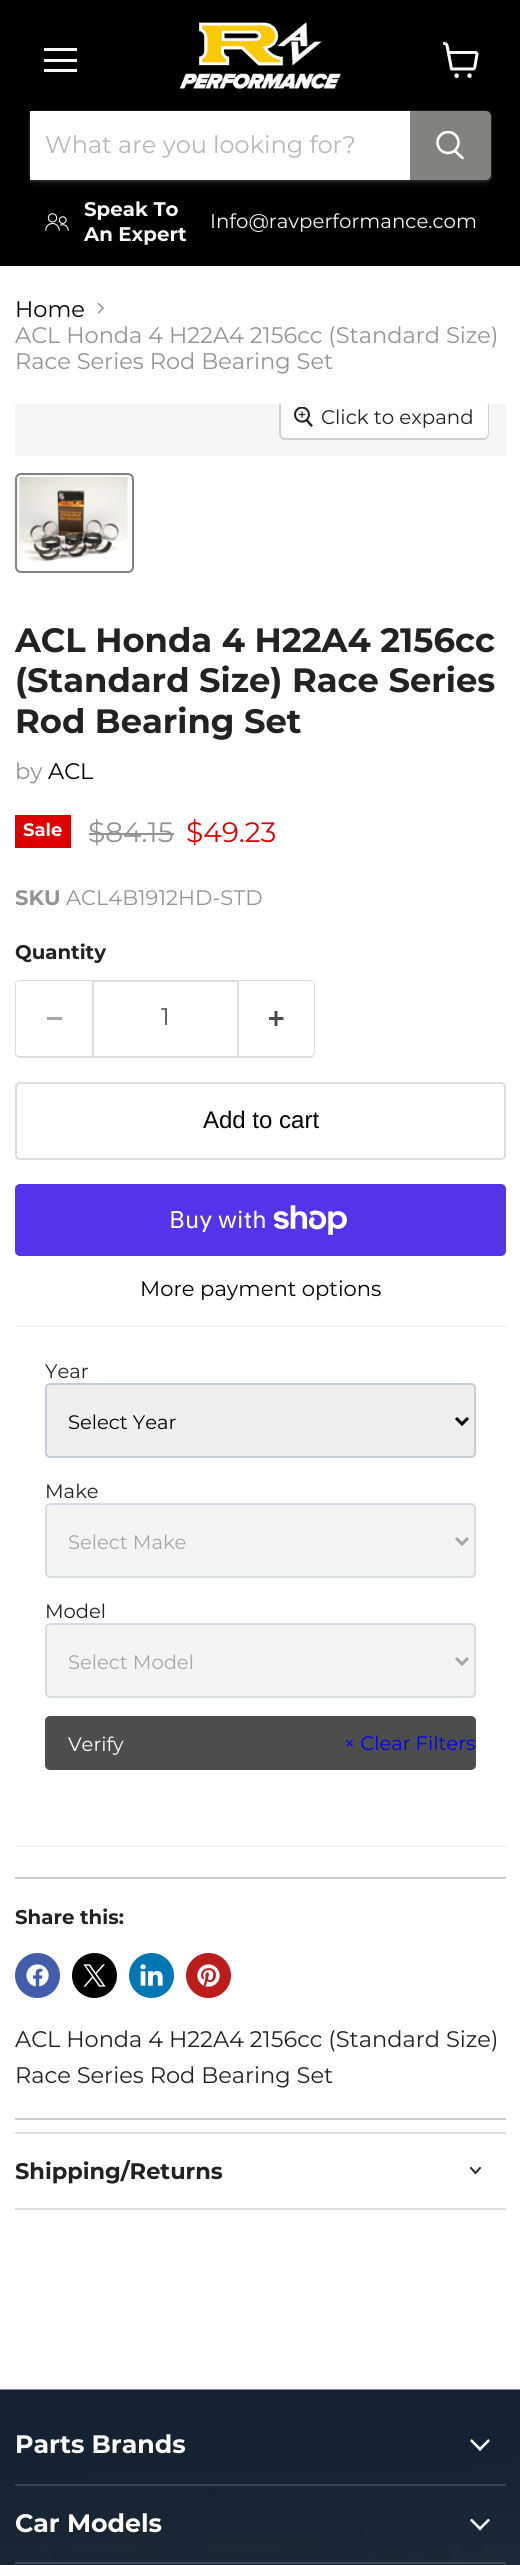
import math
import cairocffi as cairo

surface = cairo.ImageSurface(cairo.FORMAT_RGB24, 520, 2565)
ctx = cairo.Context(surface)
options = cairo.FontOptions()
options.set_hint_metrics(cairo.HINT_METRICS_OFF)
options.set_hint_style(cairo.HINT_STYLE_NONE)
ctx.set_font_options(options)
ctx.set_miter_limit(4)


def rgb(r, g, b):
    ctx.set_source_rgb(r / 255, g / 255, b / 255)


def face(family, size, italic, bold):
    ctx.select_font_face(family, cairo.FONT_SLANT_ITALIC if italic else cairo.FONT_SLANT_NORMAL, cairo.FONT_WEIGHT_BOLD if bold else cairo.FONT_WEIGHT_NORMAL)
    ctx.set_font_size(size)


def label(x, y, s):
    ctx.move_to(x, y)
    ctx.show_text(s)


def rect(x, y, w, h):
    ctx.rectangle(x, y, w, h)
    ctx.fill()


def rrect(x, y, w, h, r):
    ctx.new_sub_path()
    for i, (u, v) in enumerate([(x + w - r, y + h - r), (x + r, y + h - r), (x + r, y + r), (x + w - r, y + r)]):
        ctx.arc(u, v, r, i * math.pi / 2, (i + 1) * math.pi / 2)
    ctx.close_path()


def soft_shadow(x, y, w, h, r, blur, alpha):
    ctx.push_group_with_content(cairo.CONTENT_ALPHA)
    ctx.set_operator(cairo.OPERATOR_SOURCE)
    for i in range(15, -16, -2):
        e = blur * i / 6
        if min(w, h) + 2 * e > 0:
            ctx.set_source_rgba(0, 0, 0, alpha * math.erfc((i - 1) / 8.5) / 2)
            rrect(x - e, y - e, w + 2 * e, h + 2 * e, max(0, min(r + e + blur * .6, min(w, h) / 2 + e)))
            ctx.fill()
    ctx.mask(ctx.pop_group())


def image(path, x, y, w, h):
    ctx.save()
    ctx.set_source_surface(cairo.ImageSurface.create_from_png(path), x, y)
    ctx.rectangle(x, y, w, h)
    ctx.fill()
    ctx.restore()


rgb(255, 255, 255)
ctx.paint()
rgb(0, 0, 0)
rect(0, 0, 520, 266)
rgb(248, 248, 248)
rect(44, 48, 33, 3)
rect(44, 59, 33, 3)
rect(44, 69, 33, 3)
image('image0.png', 443, 42, 36, 36)
image('image1.png', 179, 22, 162, 67)
rgb(128, 128, 128)
soft_shadow(29, 113, 463, 72, 6, 2, 0.11)
rrect(30, 111, 461, 70, 5)
ctx.set_source_rgba(0.502, 0.502, 0.502, 0.2)
ctx.stroke()
rgb(255, 255, 255)
rect(30, 111, 380, 69)
face('Montserrat', 24, 0, 0)
rgb(184, 184, 184)
label(45, 153, 'What are you looking for?')
rgb(130, 130, 126)
ctx.new_path()
ctx.move_to(411, 112)
ctx.line_to(486, 112)
ctx.curve_to(488, 112, 490, 114, 490, 116)
ctx.line_to(490, 175)
ctx.curve_to(490, 177, 488, 179, 486, 179)
ctx.line_to(411, 179)
ctx.close_path()
ctx.fill_preserve()
ctx.stroke()
ctx.new_path()
ctx.move_to(462.5, 158)
ctx.line_to(455, 151)
rgb(255, 255, 255)
ctx.set_line_width(2.6)
ctx.set_line_cap(cairo.LINE_CAP_ROUND)
ctx.stroke()
ctx.save()
ctx.rectangle(435, 131, 30, 31)
ctx.clip()
ctx.arc(448, 142.5, 10.5, 0, 2 * math.pi)
ctx.set_line_cap(cairo.LINE_CAP_BUTT)
ctx.stroke()
ctx.restore()
image('image2.png', 45, 213, 24, 18)
face('Montserrat', 19.75, 0, 1)
rgb(248, 248, 248)
label(84, 216, 'Speak To')
label(84, 241, 'An Expert')
face('Montserrat', 19.75, 0, 0)
label(210, 228, 'Info@ravperformance.com')
face('Montserrat', 22.5, 0, 0)
rgb(0, 0, 0)
label(15, 317, 'Home')
image('image3.png', 97, 303, 7, 11)
rgb(148, 148, 148)
label(15, 343, 'ACL Honda 4 H22A4 2156cc (Standard Size)')
label(15, 369, 'Race Series Rod Bearing Set')
rgb(246, 246, 246)
rect(15, 404, 491, 52)
ctx.save()
ctx.rectangle(15, 404, 491, 52)
ctx.clip()
rrect(280, 396, 208, 43, 5)
rgb(209, 209, 209)
ctx.set_line_width(2)
ctx.set_line_cap(cairo.LINE_CAP_BUTT)
ctx.stroke()
ctx.restore()
ctx.set_source_rgba(1, 1, 1, 0.9)
ctx.new_path()
ctx.move_to(281, 404)
ctx.line_to(488, 404)
ctx.line_to(488, 433)
ctx.curve_to(488, 436, 486, 438, 483, 438)
ctx.line_to(286, 438)
ctx.curve_to(283, 438, 281, 436, 281, 433)
ctx.close_path()
ctx.fill()
image('image4.png', 294, 407, 19, 20)
face('Montserrat', 19.75, 0, 0)
rgb(34, 34, 34)
label(321, 424, 'Click to expand')
rrect(16, 474, 117, 98, 5)
rgb(129, 129, 129)
ctx.set_line_width(2)
ctx.set_line_cap(cairo.LINE_CAP_BUTT)
ctx.stroke()
image('image5.png', 19, 477, 109, 86)
face('Montserrat', 33.75, 0, 1)
rgb(34, 34, 34)
label(15, 652, 'ACL Honda 4 H22A4 2156cc')
label(15, 692, '(Standard Size) Race Series')
label(15, 733, 'Rod Bearing Set')
face('Montserrat', 22.5, 0, 0)
rgb(148, 148, 148)
label(15, 779, 'by')
rgb(0, 0, 0)
label(48, 779, 'ACL')
rgb(222, 1, 1)
rect(15, 815, 56, 33)
face('Montserrat', 18, 0, 1)
rgb(255, 255, 255)
label(23, 836, 'Sale')
face('Montserrat', 28, 0, 0)
rgb(148, 148, 148)
label(88, 842, '$84.15')
rect(89, 833, 85, 2)
rgb(222, 1, 1)
label(186, 842, '$49.23')
face('Montserrat', 21, 0, 1)
rgb(148, 148, 148)
label(15, 905, 'SKU')
face('Montserrat', 21, 0, 0)
label(66, 905, 'ACL4B1912HD-STD')
face('Montserrat', 19.75, 0, 1)
rgb(34, 34, 34)
label(15, 959, 'Quantity')
rgb(221, 221, 221)
ctx.set_fill_rule(cairo.FILL_RULE_EVEN_ODD)
ctx.new_path()
ctx.move_to(20, 980)
ctx.line_to(92, 980)
ctx.line_to(92, 1058)
ctx.line_to(20, 1058)
ctx.curve_to(17, 1058, 15, 1055, 15, 1053)
ctx.line_to(15, 984)
ctx.curve_to(15, 982, 17, 980, 20, 980)
ctx.close_path()
ctx.move_to(20, 981)
ctx.line_to(92, 981)
ctx.line_to(92, 1056)
ctx.line_to(20, 1056)
ctx.curve_to(18, 1056, 16, 1055, 16, 1053)
ctx.line_to(16, 984)
ctx.curve_to(16, 982, 18, 981, 20, 981)
ctx.close_path()
ctx.fill()
rgb(166, 166, 166)
rect(47, 1017, 15, 3)
ctx.rectangle(93, 981, 145, 76)
rgb(221, 221, 221)
ctx.stroke()
face('Montserrat', 24, 0, 0)
rgb(77, 77, 77)
label(161, 1025, '1')
rgb(221, 221, 221)
ctx.new_path()
ctx.move_to(238, 980)
ctx.line_to(310, 980)
ctx.curve_to(313, 980, 315, 982, 315, 984)
ctx.line_to(315, 1053)
ctx.curve_to(315, 1055, 313, 1058, 310, 1058)
ctx.line_to(238, 1058)
ctx.close_path()
ctx.move_to(238, 981)
ctx.line_to(310, 981)
ctx.curve_to(312, 981, 314, 982, 314, 984)
ctx.line_to(314, 1053)
ctx.curve_to(314, 1055, 312, 1056, 310, 1056)
ctx.line_to(238, 1056)
ctx.close_path()
ctx.fill()
image('image6.png', 269, 1011, 15, 15)
rrect(16, 1083, 489, 76, 4)
ctx.stroke()
face('Liberation Sans', 24, 0, 0)
rgb(0, 0, 0)
label(203, 1128, 'Add to cart')
rgb(84, 51, 235)
rrect(15, 1184, 491, 72, 5)
ctx.fill()
face('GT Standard', 24, 0, 0)
rgb(255, 255, 255)
label(169, 1228, 'Buy with')
image('image7.png', 273, 1205, 74, 30)
face('Montserrat', 21.1, 0, 0)
rgb(0, 0, 0)
label(140, 1296, 'More payment options')
rgb(204, 204, 204)
rect(15, 1877, 491, 2)
rgb(243, 243, 242)
rect(15, 1325, 491, 2)
rect(15, 1845, 491, 2)
face('Montserrat', 19.5, 0, 0)
rgb(34, 34, 34)
label(45, 1378, 'Year')
rgb(239, 239, 239)
rrect(46, 1384, 429, 73, 4)
ctx.fill_preserve()
rgb(196, 205, 213)
ctx.stroke()
ctx.new_path()
ctx.move_to(456, 1418)
ctx.line_to(462, 1424)
ctx.line_to(468, 1418)
rgb(0, 0, 0)
ctx.set_line_width(3)
ctx.stroke()
label(68, 1429, 'Select Year')
rgb(34, 34, 34)
label(45, 1498, 'Make')
rgb(244, 244, 244)
rrect(46, 1504, 429, 73, 4)
ctx.fill_preserve()
rgb(214, 220, 226)
ctx.set_line_width(2)
ctx.stroke()
ctx.new_path()
ctx.move_to(456, 1538)
ctx.line_to(462, 1544)
ctx.line_to(468, 1538)
rgb(166, 166, 166)
ctx.set_line_width(3)
ctx.stroke()
label(68, 1549, 'Select Make')
rgb(34, 34, 34)
label(45, 1618, 'Model')
rgb(244, 244, 244)
rrect(46, 1624, 429, 73, 4)
ctx.fill_preserve()
rgb(214, 220, 226)
ctx.set_line_width(2)
ctx.stroke()
ctx.new_path()
ctx.move_to(456, 1658)
ctx.line_to(462, 1664)
ctx.line_to(468, 1658)
rgb(166, 166, 166)
ctx.set_line_width(3)
ctx.stroke()
label(68, 1669, 'Select Model')
rgb(77, 77, 77)
rrect(45, 1716, 431, 54, 5)
ctx.fill()
rgb(255, 255, 255)
label(68, 1751, 'Verify')
rgb(0, 0, 238)
label(344, 1750, '× Clear Filters')
face('Montserrat', 19.75, 0, 1)
rgb(34, 34, 34)
label(15, 1924, 'Share this:')
rgb(66, 93, 171)
ctx.new_path()
ctx.arc(37.5, 1975.5, 22.5, 0, 2 * math.pi)
ctx.fill()
image('image8.png', 26, 1964, 23, 23)
rgb(0, 0, 0)
ctx.arc(94.5, 1975.5, 22.5, 0, 2 * math.pi)
ctx.fill()
image('image9.png', 83, 1964, 23, 23)
rgb(0, 119, 181)
ctx.arc(151.5, 1975.5, 22.5, 0, 2 * math.pi)
ctx.fill()
image('image10.png', 140, 1964, 23, 22)
rgb(189, 28, 28)
ctx.arc(208.5, 1975.5, 22.5, 0, 2 * math.pi)
ctx.fill()
image('image11.png', 197, 1964, 23, 23)
face('Montserrat', 22.5, 0, 0)
rgb(34, 34, 34)
label(15, 2047, 'ACL Honda 4 H22A4 2156cc (Standard Size)')
label(15, 2083, 'Race Series Rod Bearing Set')
rgb(204, 204, 204)
rect(15, 2118, 491, 2)
rgb(221, 221, 221)
rect(15, 2132, 491, 2)
rect(15, 2208, 491, 2)
face('Montserrat', 22.5, 0, 1)
rgb(34, 34, 34)
label(15, 2179, 'Shipping/Returns')
ctx.new_path()
ctx.move_to(475.5, 2173)
ctx.line_to(480, 2168)
ctx.move_to(475.5, 2173)
ctx.line_to(471, 2168)
ctx.set_line_width(1.9)
ctx.set_line_cap(cairo.LINE_CAP_SQUARE)
ctx.stroke()
image('image12.png', 0, 2389, 520, 176)
rgb(58, 69, 82)
rect(15, 2484, 491, 2)
face('Montserrat', 25.25, 0, 1)
rgb(255, 255, 255)
label(15, 2453, 'Parts Brands')
image('image13.png', 470, 2439, 20, 12)
ctx.set_source_rgba(1, 1, 1, 0.15)
rect(15, 2562, 491, 2)
rgb(255, 255, 255)
label(15, 2532, 'Car Models')
image('image14.png', 470, 2519, 20, 12)
surface.write_to_png('render.png')
